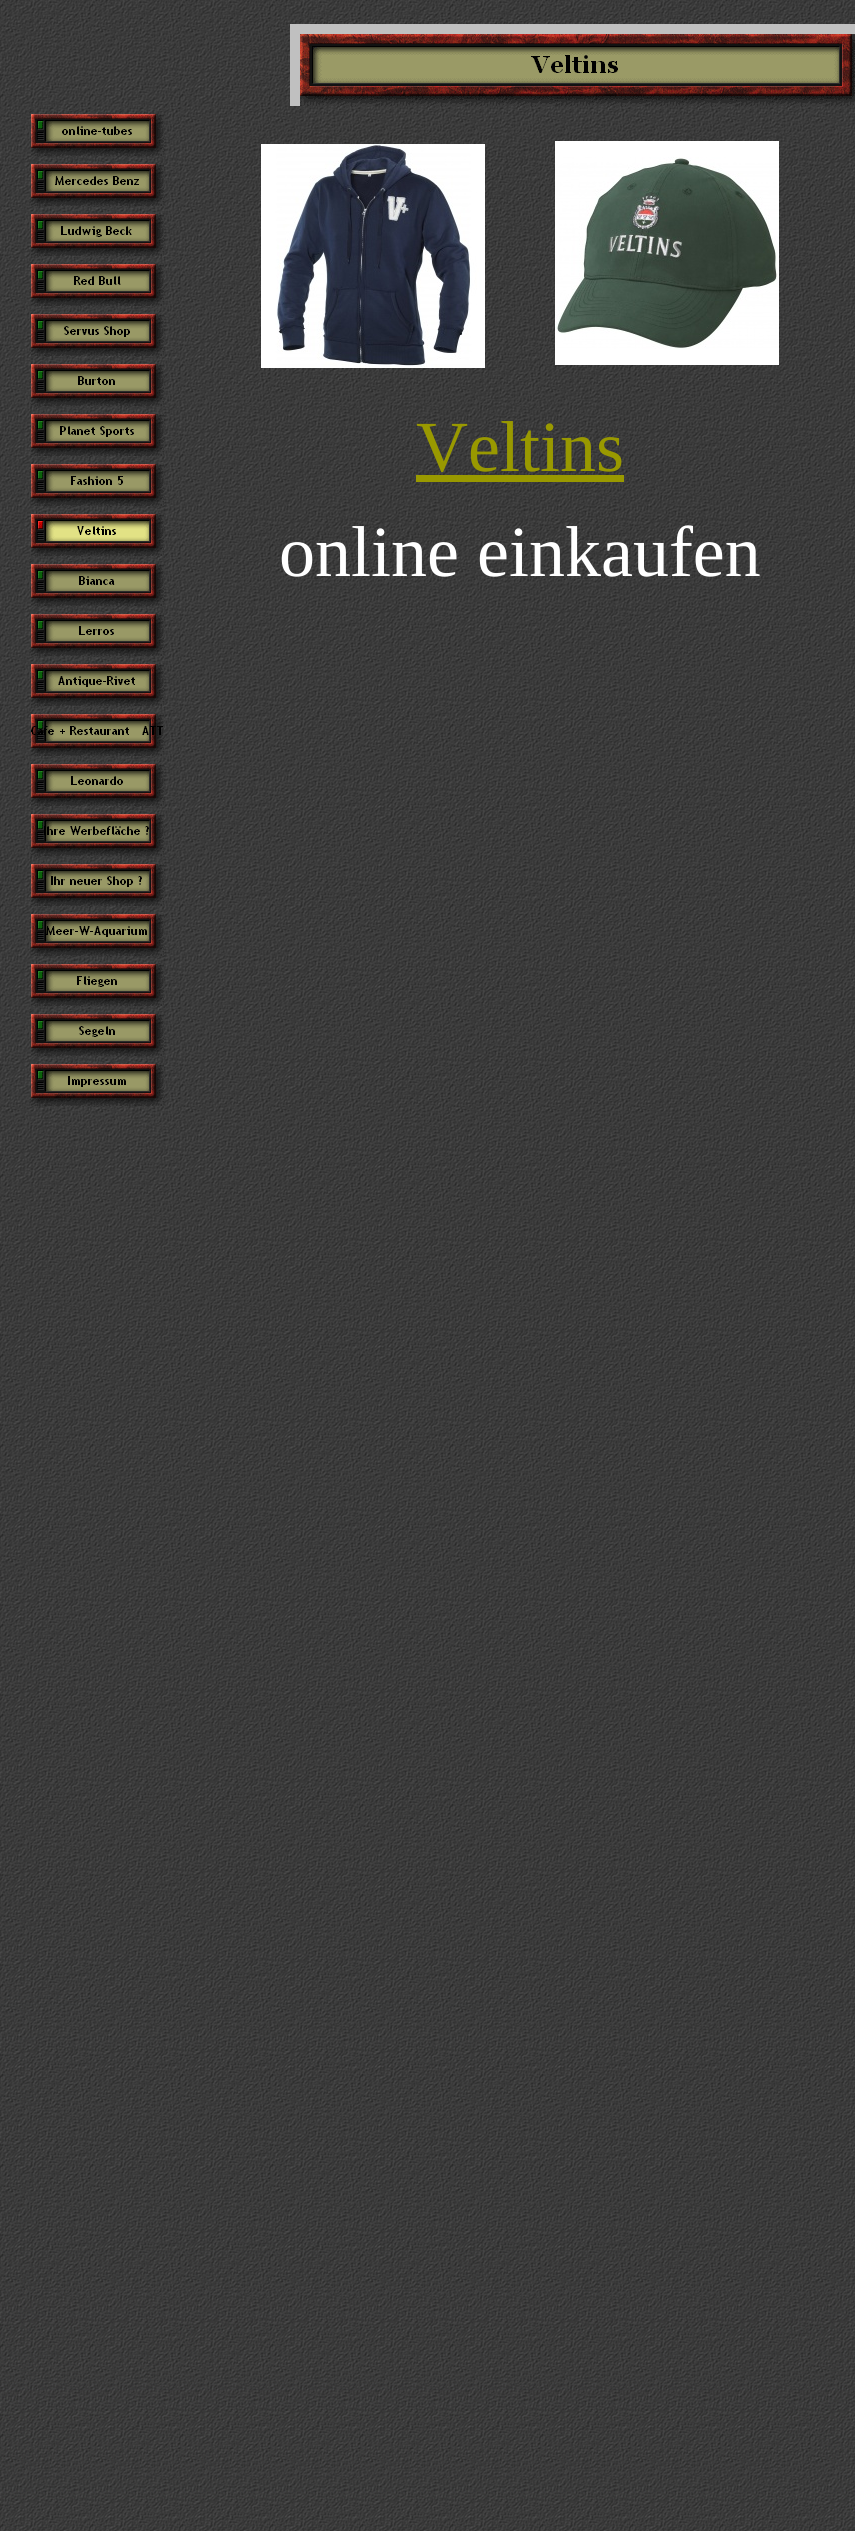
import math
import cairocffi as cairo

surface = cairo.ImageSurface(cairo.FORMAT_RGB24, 855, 2531)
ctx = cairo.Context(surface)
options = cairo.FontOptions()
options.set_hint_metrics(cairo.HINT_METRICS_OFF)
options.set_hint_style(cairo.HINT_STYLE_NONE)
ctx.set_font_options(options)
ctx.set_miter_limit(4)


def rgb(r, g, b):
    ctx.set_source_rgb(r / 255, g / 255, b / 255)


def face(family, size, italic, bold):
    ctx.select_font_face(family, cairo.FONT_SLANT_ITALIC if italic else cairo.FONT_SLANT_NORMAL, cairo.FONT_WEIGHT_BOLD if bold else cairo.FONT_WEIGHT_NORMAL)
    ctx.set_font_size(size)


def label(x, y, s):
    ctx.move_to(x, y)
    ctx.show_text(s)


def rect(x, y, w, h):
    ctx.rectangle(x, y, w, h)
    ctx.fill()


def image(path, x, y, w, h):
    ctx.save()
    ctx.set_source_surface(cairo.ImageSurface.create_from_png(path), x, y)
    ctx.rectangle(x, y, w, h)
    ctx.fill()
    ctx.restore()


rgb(255, 255, 255)
ctx.paint()
image('image0.png', 0, 0, 855, 2531)
image('image1.png', 31, 114, 133, 42)
image('image2.png', 31, 164, 133, 42)
image('image3.png', 31, 214, 133, 42)
image('image4.png', 31, 264, 133, 42)
image('image5.png', 31, 314, 133, 42)
image('image6.png', 31, 364, 133, 42)
image('image7.png', 31, 414, 133, 42)
image('image8.png', 31, 464, 133, 42)
image('image9.png', 31, 514, 133, 42)
image('image10.png', 31, 564, 133, 42)
image('image11.png', 31, 614, 133, 42)
image('image12.png', 31, 664, 133, 42)
image('image13.png', 31, 714, 133, 42)
image('image14.png', 31, 764, 133, 42)
image('image15.png', 31, 814, 133, 42)
image('image16.png', 31, 864, 133, 42)
image('image17.png', 31, 914, 133, 42)
image('image18.png', 31, 964, 133, 42)
image('image19.png', 31, 1014, 133, 42)
image('image20.png', 31, 1064, 133, 42)
rgb(192, 192, 192)
rect(290, 24, 565, 82)
image('image21.png', 300, 34, 555, 72)
image('image22.png', 261, 144, 224, 224)
image('image23.png', 555, 141, 224, 224)
face('Liberation Serif', 72, 0, 0)
rgb(153, 153, 0)
label(416, 471, 'Veltins')
rect(416, 475, 208, 7)
rgb(255, 255, 255)
label(279, 576, 'online einkaufen')
surface.write_to_png('render.png')
